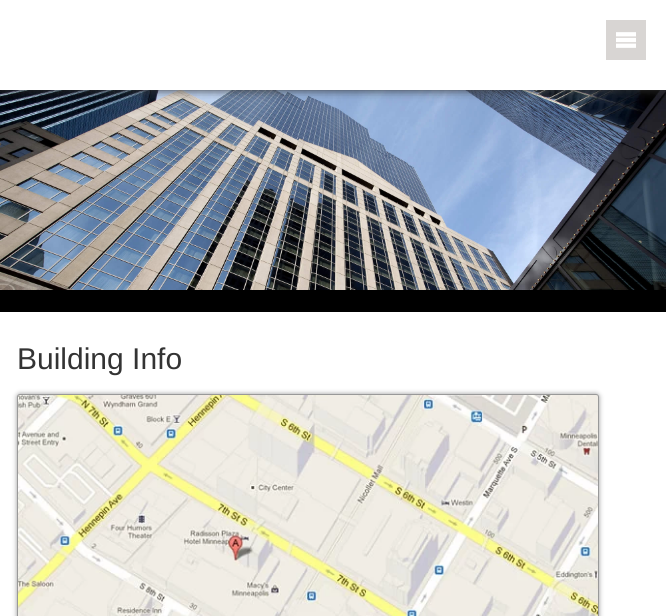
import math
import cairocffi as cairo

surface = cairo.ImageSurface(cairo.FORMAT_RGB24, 666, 616)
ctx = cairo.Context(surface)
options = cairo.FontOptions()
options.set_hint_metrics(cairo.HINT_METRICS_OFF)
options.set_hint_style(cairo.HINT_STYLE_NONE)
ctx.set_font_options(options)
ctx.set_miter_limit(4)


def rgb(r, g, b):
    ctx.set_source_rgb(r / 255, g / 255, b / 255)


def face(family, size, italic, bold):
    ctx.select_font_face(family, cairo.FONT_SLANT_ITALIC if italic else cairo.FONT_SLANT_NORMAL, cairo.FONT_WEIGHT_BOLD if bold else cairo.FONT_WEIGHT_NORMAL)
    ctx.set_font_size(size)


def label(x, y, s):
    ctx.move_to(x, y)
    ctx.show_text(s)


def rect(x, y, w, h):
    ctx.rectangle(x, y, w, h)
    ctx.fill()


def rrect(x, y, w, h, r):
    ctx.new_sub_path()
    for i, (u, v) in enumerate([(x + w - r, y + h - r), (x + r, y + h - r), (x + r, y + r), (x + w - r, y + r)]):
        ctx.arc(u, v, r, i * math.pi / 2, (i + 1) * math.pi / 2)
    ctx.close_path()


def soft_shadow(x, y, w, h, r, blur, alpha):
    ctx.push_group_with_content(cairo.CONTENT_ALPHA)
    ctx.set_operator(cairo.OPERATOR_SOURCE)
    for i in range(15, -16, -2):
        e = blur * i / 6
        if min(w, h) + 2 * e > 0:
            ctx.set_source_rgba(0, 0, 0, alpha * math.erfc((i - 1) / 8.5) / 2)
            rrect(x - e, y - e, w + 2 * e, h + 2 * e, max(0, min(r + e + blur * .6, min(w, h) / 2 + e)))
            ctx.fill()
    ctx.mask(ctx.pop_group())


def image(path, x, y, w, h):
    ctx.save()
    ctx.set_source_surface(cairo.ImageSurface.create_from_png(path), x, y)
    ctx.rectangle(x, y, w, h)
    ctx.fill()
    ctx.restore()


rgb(255, 255, 255)
ctx.paint()
image('image1.png', 0, 90, 666, 200)
rgb(51, 51, 51)
soft_shadow(0, 0, 666, 90, 0, 5, 1)
rgb(255, 255, 255)
rect(0, 0, 666, 90)
rgb(216, 213, 211)
rect(606, 20, 40, 40)
image('image0.png', 616, 32, 20, 16)
rgb(0, 0, 0)
rect(0, 290, 666, 22)
face('Liberation Sans', 30, 0, 0)
rgb(51, 51, 51)
label(17, 369, 'Building Info')
rgb(153, 153, 153)
soft_shadow(17, 394, 582, 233, 3, 2.5, 1)
rrect(17.5, 394.5, 581, 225, 2.5)
rgb(153, 153, 153)
ctx.set_line_width(1)
ctx.stroke()
image('image2.png', 18, 395, 580, 221)
surface.write_to_png('render.png')
